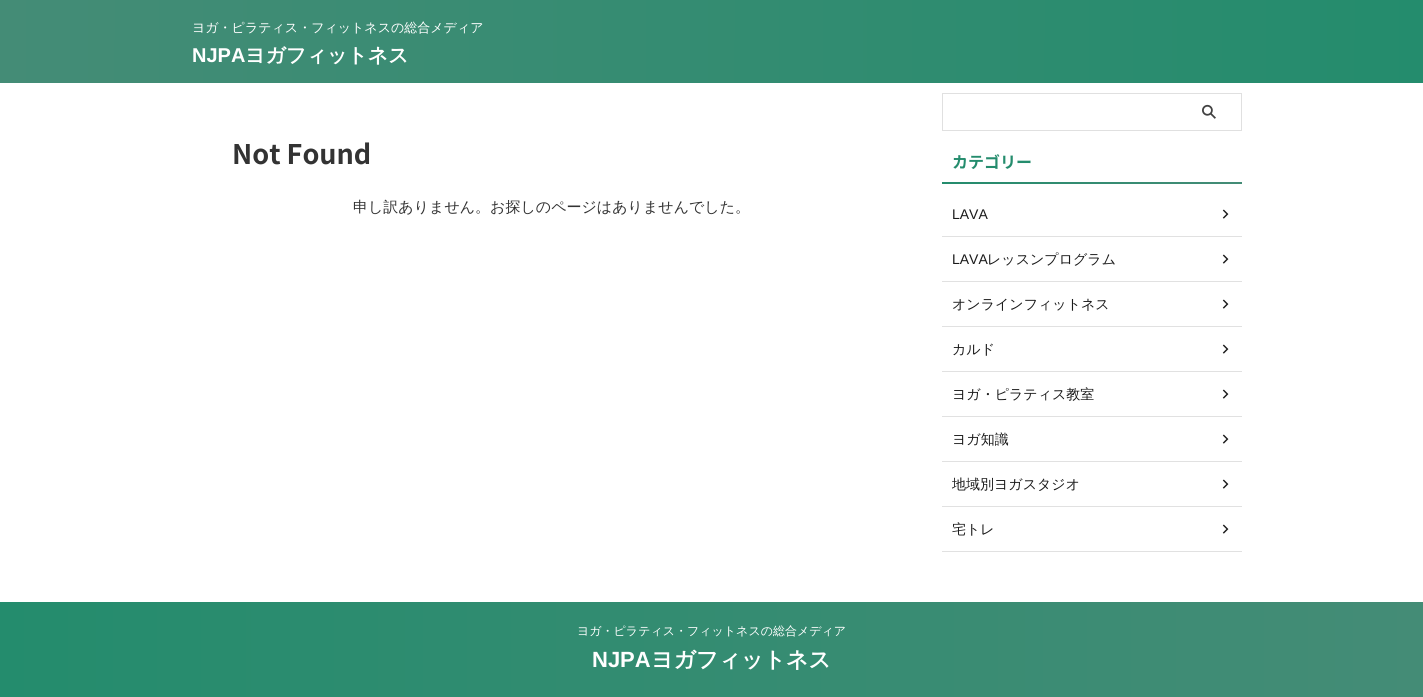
import math
import cairocffi as cairo

surface = cairo.ImageSurface(cairo.FORMAT_RGB24, 1423, 697)
ctx = cairo.Context(surface)
options = cairo.FontOptions()
options.set_hint_metrics(cairo.HINT_METRICS_OFF)
options.set_hint_style(cairo.HINT_STYLE_NONE)
ctx.set_font_options(options)
ctx.set_miter_limit(4)


def rgb(r, g, b):
    ctx.set_source_rgb(r / 255, g / 255, b / 255)


def face(family, size, italic, bold):
    ctx.select_font_face(family, cairo.FONT_SLANT_ITALIC if italic else cairo.FONT_SLANT_NORMAL, cairo.FONT_WEIGHT_BOLD if bold else cairo.FONT_WEIGHT_NORMAL)
    ctx.set_font_size(size)


def label(x, y, s):
    ctx.move_to(x, y)
    ctx.show_text(s)


def rect(x, y, w, h):
    ctx.rectangle(x, y, w, h)
    ctx.fill()


def image(path, x, y, w, h):
    ctx.save()
    ctx.set_source_surface(cairo.ImageSurface.create_from_png(path), x, y)
    ctx.rectangle(x, y, w, h)
    ctx.fill()
    ctx.restore()


rgb(255, 255, 255)
ctx.paint()
gradient = cairo.LinearGradient(1423, 42, 0, 41)
gradient.add_color_stop_rgba(0, 0.141, 0.549, 0.427, 1)
gradient.add_color_stop_rgba(1, 0.267, 0.549, 0.463, 1)
ctx.set_source(gradient)
rect(0, 0, 1423, 83)
face('WenQuanYi Zen Hei Medium', 13, 0, 0)
rgb(255, 255, 255)
label(192, 32, 'ヨガ・ピラティス・フィットネスの総合メディア')
face('Liberation Sans', 20, 0, 1)
label(192, 62, 'NJPA')
face('WenQuanYi Zen Hei', 20, 0, 1)
label(245, 62, 'ヨガフィットネス')
face('Noto Sans JP', 27, 0, 1)
rgb(51, 51, 51)
label(232, 164, 'Not Found')
face('WenQuanYi Zen Hei Medium', 15, 0, 0)
label(353, 212, '申し訳ありません。お探しのページはありませんでした。')
ctx.rectangle(942.5, 93.5, 299, 37)
rgb(224, 224, 224)
ctx.set_line_width(1)
ctx.stroke()
image('image0.png', 1202, 104, 14, 15)
face('Noto Sans JP', 16, 0, 1)
rgb(36, 140, 109)
label(952, 168, 'カテゴリー')
gradient = cairo.LinearGradient(1242, 183, 942, 183)
gradient.add_color_stop_rgba(0, 0.267, 0.549, 0.463, 1)
gradient.add_color_stop_rgba(1, 0.141, 0.549, 0.427, 1)
ctx.set_source(gradient)
rect(942, 182, 300, 2)
rgb(225, 225, 225)
rect(942, 236, 300, 1)
face('Liberation Sans', 14, 0, 0)
rgb(26, 26, 26)
label(952, 219, 'LAVA')
image('image1.png', 1222, 209, 7, 10)
rgb(225, 225, 225)
rect(942, 281, 300, 1)
rgb(26, 26, 26)
label(952, 264, 'LAVA')
face('WenQuanYi Zen Hei Medium', 14, 0, 0)
label(987, 264, 'レッスンプログラム')
image('image1.png', 1222, 254, 7, 10)
rgb(225, 225, 225)
rect(942, 326, 300, 1)
rgb(26, 26, 26)
label(952, 309, 'オンラインフィットネス')
image('image1.png', 1222, 299, 7, 10)
rgb(225, 225, 225)
rect(942, 371, 300, 1)
rgb(26, 26, 26)
label(952, 354, 'カルド')
image('image1.png', 1222, 344, 7, 10)
rgb(225, 225, 225)
rect(942, 416, 300, 1)
rgb(26, 26, 26)
label(952, 399, 'ヨガ・ピラティス教室')
image('image1.png', 1222, 389, 7, 10)
rgb(225, 225, 225)
rect(942, 461, 300, 1)
rgb(26, 26, 26)
label(952, 444, 'ヨガ知識')
image('image1.png', 1222, 434, 7, 10)
rgb(225, 225, 225)
rect(942, 506, 300, 1)
rgb(26, 26, 26)
label(952, 489, '地域別ヨガスタジオ')
image('image1.png', 1222, 479, 7, 10)
rgb(225, 225, 225)
rect(942, 551, 300, 1)
rgb(26, 26, 26)
label(952, 534, '宅トレ')
image('image1.png', 1222, 524, 7, 10)
gradient = cairo.LinearGradient(1423, 663, 0, 663)
gradient.add_color_stop_rgba(0, 0.267, 0.549, 0.463, 1)
gradient.add_color_stop_rgba(1, 0.141, 0.549, 0.427, 1)
ctx.set_source(gradient)
rect(0, 602, 1423, 95)
face('WenQuanYi Zen Hei Medium', 12, 0, 0)
rgb(255, 255, 255)
label(577, 635, 'ヨガ・ピラティス・フィットネスの総合メディア')
face('Liberation Sans', 22, 0, 1)
label(592, 667, 'NJPA')
face('WenQuanYi Zen Hei', 22, 0, 1)
label(651, 667, 'ヨガフィットネス')
surface.write_to_png('render.png')
